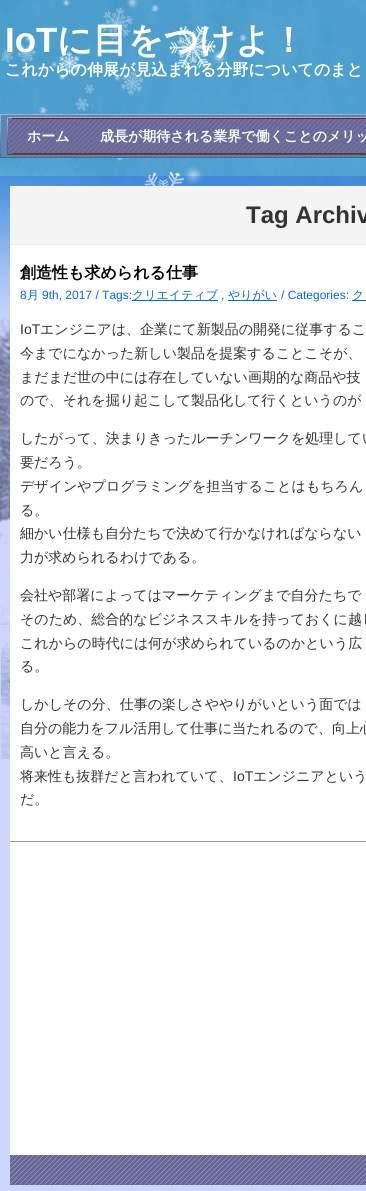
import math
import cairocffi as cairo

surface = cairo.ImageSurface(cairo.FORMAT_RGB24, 366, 1191)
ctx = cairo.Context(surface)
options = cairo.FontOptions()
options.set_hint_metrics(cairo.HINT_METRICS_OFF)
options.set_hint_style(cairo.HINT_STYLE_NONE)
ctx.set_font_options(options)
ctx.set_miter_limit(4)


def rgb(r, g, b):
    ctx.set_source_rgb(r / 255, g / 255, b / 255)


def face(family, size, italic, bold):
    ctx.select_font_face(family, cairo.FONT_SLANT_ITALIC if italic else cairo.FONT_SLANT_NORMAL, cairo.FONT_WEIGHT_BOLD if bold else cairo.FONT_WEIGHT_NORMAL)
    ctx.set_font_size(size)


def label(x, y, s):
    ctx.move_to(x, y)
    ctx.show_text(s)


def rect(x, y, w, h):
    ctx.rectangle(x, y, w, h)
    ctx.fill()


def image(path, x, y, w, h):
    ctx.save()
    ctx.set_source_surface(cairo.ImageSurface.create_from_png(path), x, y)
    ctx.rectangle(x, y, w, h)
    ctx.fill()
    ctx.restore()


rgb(255, 255, 255)
ctx.paint()
image('image0.png', 0, 0, 366, 760)
face('Liberation Sans', 35, 0, 1)
rgb(255, 255, 255)
label(5, 52, 'IoT')
face('WenQuanYi Zen Hei', 35, 0, 1)
label(57, 52, 'に目をつけよ！')
face('WenQuanYi Zen Hei', 16, 0, 1)
label(5, 75, 'これからの伸展が見込まれる分野についてのまと')
image('image1.png', 0, 154, 366, 4)
image('image2.png', 0, 114, 366, 40)
rgb(117, 32, 3)
rect(12, 118, 354, 1)
rgb(144, 36, 8)
rect(12, 153, 354, 1)
face('WenQuanYi Zen Hei', 14, 0, 1)
rgb(255, 255, 255)
label(27, 141, 'ホーム')
label(100, 141, '成長が期待される業界で働くことのメリッ')
ctx.set_source_rgba(0, 0.2, 1, 0.2)
rect(0, 176, 366, 1015)
rgb(255, 255, 255)
rect(10, 245, 356, 910)
rgb(244, 244, 244)
rect(10, 186, 356, 58)
rgb(232, 232, 232)
rect(10, 244, 356, 1)
face('Liberation Sans', 24, 0, 1)
rgb(51, 51, 51)
label(246, 223, 'Tag Archiv')
rgb(153, 153, 153)
rect(10, 841, 356, 1)
face('WenQuanYi Zen Hei', 16, 0, 1)
rgb(0, 0, 0)
label(20, 278, '創造性も求められる仕事')
face('Liberation Sans', 12, 0, 0)
rgb(0, 102, 255)
label(20, 299, '8')
face('WenQuanYi Zen Hei Medium', 12, 0, 0)
label(27, 299, '月')
face('Liberation Sans', 12, 0, 0)
label(42, 299, '9th, 2017 / Tags:')
rect(132, 300, 86, 1)
face('WenQuanYi Zen Hei Medium', 12, 0, 0)
label(132, 299, 'クリエイティブ')
face('Liberation Sans', 12, 0, 0)
label(221, 299, ',')
rect(228, 300, 49, 1)
face('WenQuanYi Zen Hei Medium', 12, 0, 0)
label(228, 299, 'やりがい')
face('Liberation Sans', 12, 0, 0)
label(281, 299, '/ Categories:')
rect(352, 300, 14, 1)
face('WenQuanYi Zen Hei Medium', 12, 0, 0)
label(352, 299, 'ク')
face('Liberation Sans', 14, 0, 0)
rgb(51, 51, 51)
label(20, 334, 'IoT')
face('WenQuanYi Zen Hei Medium', 14, 0, 0)
label(40, 334, 'エンジニアは、企業にて新製品の開発に従事するこ')
label(20, 358, '今までになかった新しい製品を提案することこそが、')
label(20, 382, 'まだまだ世の中には存在していない画期的な商品や技')
label(20, 405, 'ので、それを掘り起こして製品化して行くというのが')
label(20, 443, 'したがって、決まりきったルーチンワークを処理してい')
label(20, 467, '要だろう。')
label(20, 491, 'デザインやプログラミングを担当することはもちろん')
label(20, 515, 'る。')
label(20, 538, '細かい仕様も自分たちで決めて行かなければならない')
label(20, 562, '力が求められるわけである。')
label(20, 600, '会社や部署によってはマーケティングまで自分たちで')
label(20, 624, 'そのため、総合的なビジネススキルを持っておくに越し')
label(20, 648, 'これからの時代には何が求められているのかという広')
label(20, 671, 'る。')
label(20, 709, 'しかしその分、仕事の楽しさややりがいという面では')
label(20, 733, '自分の能力をフル活用して仕事に当たれるので、向上心')
label(20, 757, '高いと言える。')
label(20, 781, '将来性も抜群だと言われていて、')
face('Liberation Sans', 14, 0, 0)
label(233, 781, 'IoT')
face('WenQuanYi Zen Hei Medium', 14, 0, 0)
label(253, 781, 'エンジニアという')
label(20, 804, 'だ。')
image('image3.png', 10, 1155, 356, 30)
surface.write_to_png('render.png')
